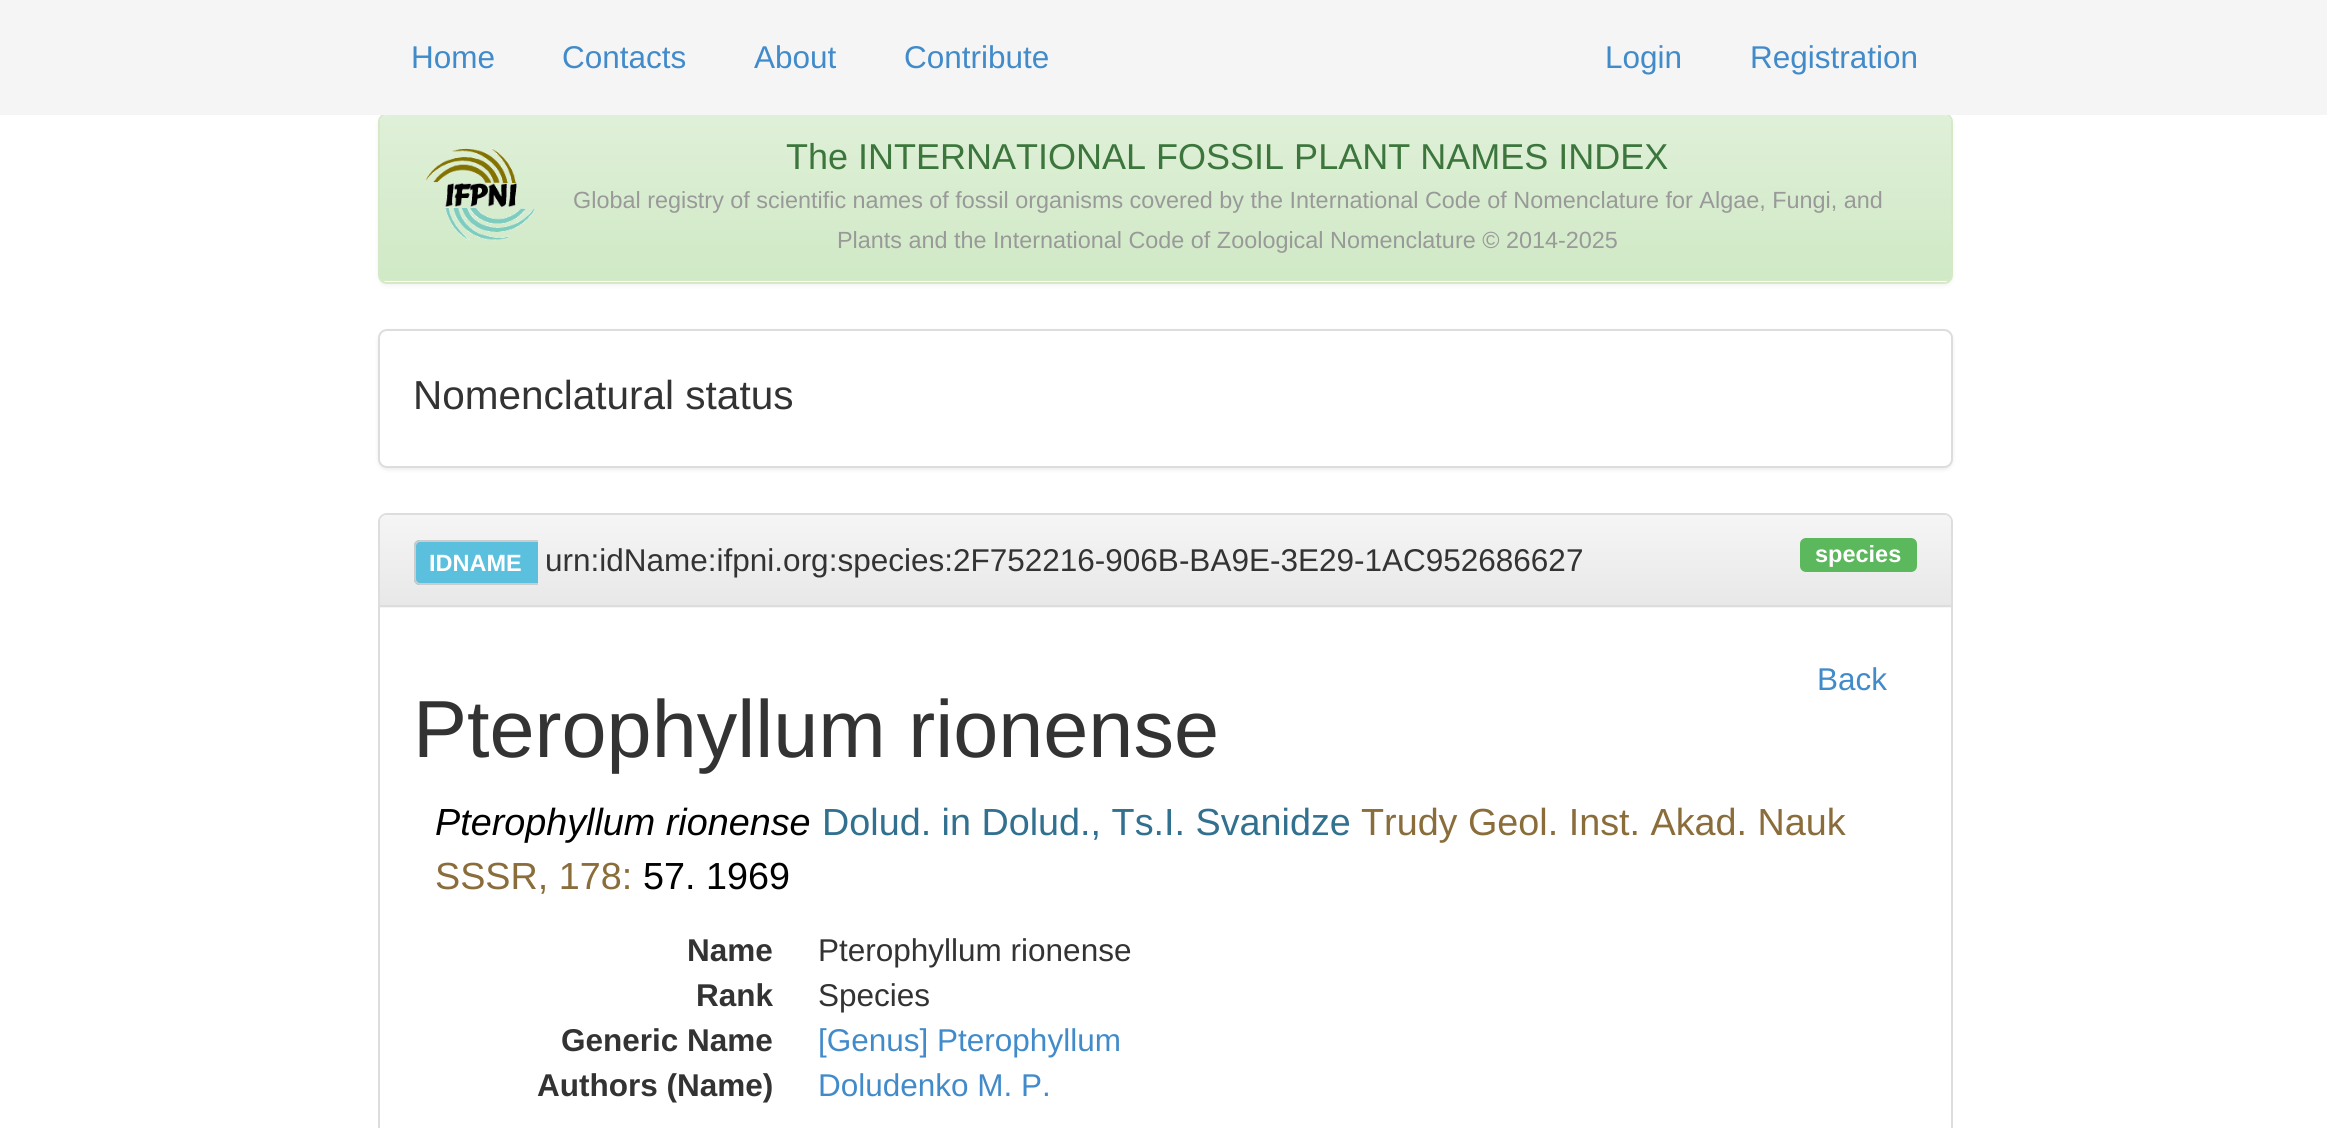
import math
import cairocffi as cairo

surface = cairo.ImageSurface(cairo.FORMAT_RGB24, 2327, 1128)
ctx = cairo.Context(surface)
options = cairo.FontOptions()
options.set_hint_metrics(cairo.HINT_METRICS_OFF)
options.set_hint_style(cairo.HINT_STYLE_NONE)
ctx.set_font_options(options)
ctx.set_miter_limit(4)


def rgb(r, g, b):
    ctx.set_source_rgb(r / 255, g / 255, b / 255)


def face(family, size, italic, bold):
    ctx.select_font_face(family, cairo.FONT_SLANT_ITALIC if italic else cairo.FONT_SLANT_NORMAL, cairo.FONT_WEIGHT_BOLD if bold else cairo.FONT_WEIGHT_NORMAL)
    ctx.set_font_size(size)


def label(x, y, s):
    ctx.move_to(x, y)
    ctx.show_text(s)


def rect(x, y, w, h):
    ctx.rectangle(x, y, w, h)
    ctx.fill()


def rrect(x, y, w, h, r):
    ctx.new_sub_path()
    for i, (u, v) in enumerate([(x + w - r, y + h - r), (x + r, y + h - r), (x + r, y + r), (x + w - r, y + r)]):
        ctx.arc(u, v, r, i * math.pi / 2, (i + 1) * math.pi / 2)
    ctx.close_path()


def soft_shadow(x, y, w, h, r, blur, alpha):
    ctx.push_group_with_content(cairo.CONTENT_ALPHA)
    ctx.set_operator(cairo.OPERATOR_SOURCE)
    for i in range(15, -16, -2):
        e = blur * i / 6
        if min(w, h) + 2 * e > 0:
            ctx.set_source_rgba(0, 0, 0, alpha * math.erfc((i - 1) / 8.5) / 2)
            rrect(x - e, y - e, w + 2 * e, h + 2 * e, max(0, min(r + e + blur * .6, min(w, h) / 2 + e)))
            ctx.fill()
    ctx.mask(ctx.pop_group())


def image(path, x, y, w, h):
    ctx.save()
    ctx.set_source_surface(cairo.ImageSurface.create_from_png(path), x, y)
    ctx.rectangle(x, y, w, h)
    ctx.fill()
    ctx.restore()


rgb(255, 255, 255)
ctx.paint()
rgb(0, 0, 0)
soft_shadow(378, 115, 1575, 171, 9, 2, 0.05)
rgb(255, 255, 255)
rrect(379, 114, 1573, 169, 8)
ctx.fill_preserve()
rgb(214, 233, 198)
ctx.stroke()
rgb(245, 245, 245)
rect(0, 0, 2327, 115)
face('Liberation Sans', 31.5, 0, 0)
rgb(66, 139, 202)
label(411, 68, 'Home')
label(562, 68, 'Contacts')
label(754, 68, 'About')
label(904, 68, 'Contribute')
label(1605, 68, 'Login')
label(1750, 68, 'Registration')
gradient = cairo.LinearGradient(1166, 115, 1166, 279)
gradient.add_color_stop_rgba(0, 0.875, 0.941, 0.847, 1)
gradient.add_color_stop_rgba(1, 0.816, 0.914, 0.776, 1)
ctx.set_source(gradient)
ctx.new_path()
ctx.move_to(387, 115)
ctx.line_to(1944, 115)
ctx.curve_to(1948, 115, 1951, 118, 1951, 122)
ctx.line_to(1951, 279)
ctx.line_to(380, 279)
ctx.line_to(380, 122)
ctx.curve_to(380, 118, 383, 115, 387, 115)
ctx.close_path()
ctx.fill()
rgb(214, 233, 198)
rect(380, 279, 1571, 2)
image('image0.png', 425, 148, 110, 93)
face('Liberation Sans', 36, 0, 0)
rgb(60, 118, 61)
label(786, 169, 'The INTERNATIONAL FOSSIL PLANT NAMES INDEX')
face('Liberation Sans', 23.4, 0, 0)
rgb(153, 153, 153)
label(573, 208, 'Global registry of scientific names of fossil organisms covered by the International Code of Nomenclature for Algae, Fungi, and')
label(837, 248, 'Plants and the International Code of Zoological Nomenclature © 2014-2025')
rgb(0, 0, 0)
soft_shadow(378, 331, 1575, 139, 9, 2, 0.07)
rgb(255, 255, 255)
rrect(379, 330, 1573, 137, 8)
ctx.fill_preserve()
rgb(221, 221, 221)
ctx.stroke()
face('Liberation Sans', 40.5, 0, 0)
rgb(51, 51, 51)
label(413, 409, 'Nomenclatural status')
rrect(379, 514, 1573, 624, 8)
rgb(221, 221, 221)
ctx.stroke()
rgb(245, 245, 245)
ctx.new_path()
ctx.move_to(387, 515)
ctx.line_to(1944, 515)
ctx.curve_to(1948, 515, 1951, 518, 1951, 522)
ctx.line_to(1951, 608)
ctx.line_to(380, 608)
ctx.line_to(380, 522)
ctx.curve_to(380, 518, 383, 515, 387, 515)
ctx.close_path()
ctx.fill()
gradient = cairo.LinearGradient(1166, 515, 1166, 605)
gradient.add_color_stop_rgba(0, 0.961, 0.961, 0.961, 1)
gradient.add_color_stop_rgba(1, 0.91, 0.91, 0.91, 1)
ctx.set_source(gradient)
ctx.new_path()
ctx.move_to(387, 515)
ctx.line_to(1944, 515)
ctx.curve_to(1948, 515, 1951, 518, 1951, 522)
ctx.line_to(1951, 605)
ctx.line_to(380, 605)
ctx.line_to(380, 522)
ctx.curve_to(380, 518, 383, 515, 387, 515)
ctx.close_path()
ctx.fill()
rgb(221, 221, 221)
rect(380, 605, 1571, 2)
rgb(91, 192, 222)
ctx.new_path()
ctx.move_to(420, 540)
ctx.line_to(538, 540)
ctx.line_to(538, 585)
ctx.line_to(420, 585)
ctx.curve_to(416.5, 585, 414, 582.5, 414, 579)
ctx.line_to(414, 546)
ctx.curve_to(414, 542.5, 416.5, 540, 420, 540)
ctx.close_path()
ctx.fill()
rgb(204, 204, 204)
ctx.set_fill_rule(cairo.FILL_RULE_EVEN_ODD)
ctx.new_path()
ctx.move_to(420, 540)
ctx.line_to(538, 540)
ctx.line_to(538, 585)
ctx.line_to(420, 585)
ctx.curve_to(417, 585, 414, 582, 414, 579)
ctx.line_to(414, 546)
ctx.curve_to(414, 543, 417, 540, 420, 540)
ctx.close_path()
ctx.move_to(420, 542)
ctx.line_to(538, 542)
ctx.line_to(538, 583)
ctx.line_to(420, 583)
ctx.curve_to(418, 583, 416, 581, 416, 579)
ctx.line_to(416, 546)
ctx.curve_to(416, 544, 418, 542, 420, 542)
ctx.close_path()
ctx.fill()
face('Liberation Sans', 23.5, 0, 1)
rgb(255, 255, 255)
label(429, 571, 'IDNAME')
face('Liberation Sans', 31.5, 0, 0)
rgb(51, 51, 51)
label(545, 571, 'urn:idName:ifpni.org:species:2F752216-906B-BA9E-3E29-1AC952686627')
rgb(92, 184, 92)
rrect(1800, 538, 117, 34, 6)
ctx.fill()
face('Liberation Sans', 23.5, 0, 1)
rgb(255, 255, 255)
label(1815, 562, 'species')
face('Liberation Sans', 31.5, 0, 0)
rgb(66, 139, 202)
label(1817, 690, 'Back')
face('Liberation Sans', 81, 0, 0)
rgb(51, 51, 51)
label(413, 757, 'Pterophyllum rionense')
face('Liberation Sans', 37.75, 1, 0)
rgb(0, 0, 0)
label(435, 835, 'Pterophyllum rionense')
face('Liberation Sans', 37.75, 0, 0)
rgb(49, 112, 143)
label(822, 835, 'Dolud. in Dolud., Ts.I. Svanidze')
rgb(138, 109, 59)
label(1361, 835, 'Trudy Geol. Inst. Akad. Nauk')
label(435, 889, 'SSSR, 178:')
rgb(0, 0, 0)
label(643, 889, '57. 1969')
face('Liberation Sans', 31.5, 0, 1)
rgb(51, 51, 51)
label(687, 961, 'Name')
face('Liberation Sans', 31.5, 0, 0)
label(818, 961, 'Pterophyllum rionense')
face('Liberation Sans', 31.5, 0, 1)
label(696, 1006, 'Rank')
face('Liberation Sans', 31.5, 0, 0)
label(818, 1006, 'Species')
face('Liberation Sans', 31.5, 0, 1)
label(561, 1051, 'Generic Name')
face('Liberation Sans', 31.5, 0, 0)
rgb(66, 139, 202)
label(818, 1051, '[Genus] Pterophyllum')
face('Liberation Sans', 31.5, 0, 1)
rgb(51, 51, 51)
label(537, 1096, 'Authors (Name)')
face('Liberation Sans', 31.5, 0, 0)
rgb(66, 139, 202)
label(818, 1096, 'Doludenko M. P.')
surface.write_to_png('render.png')
